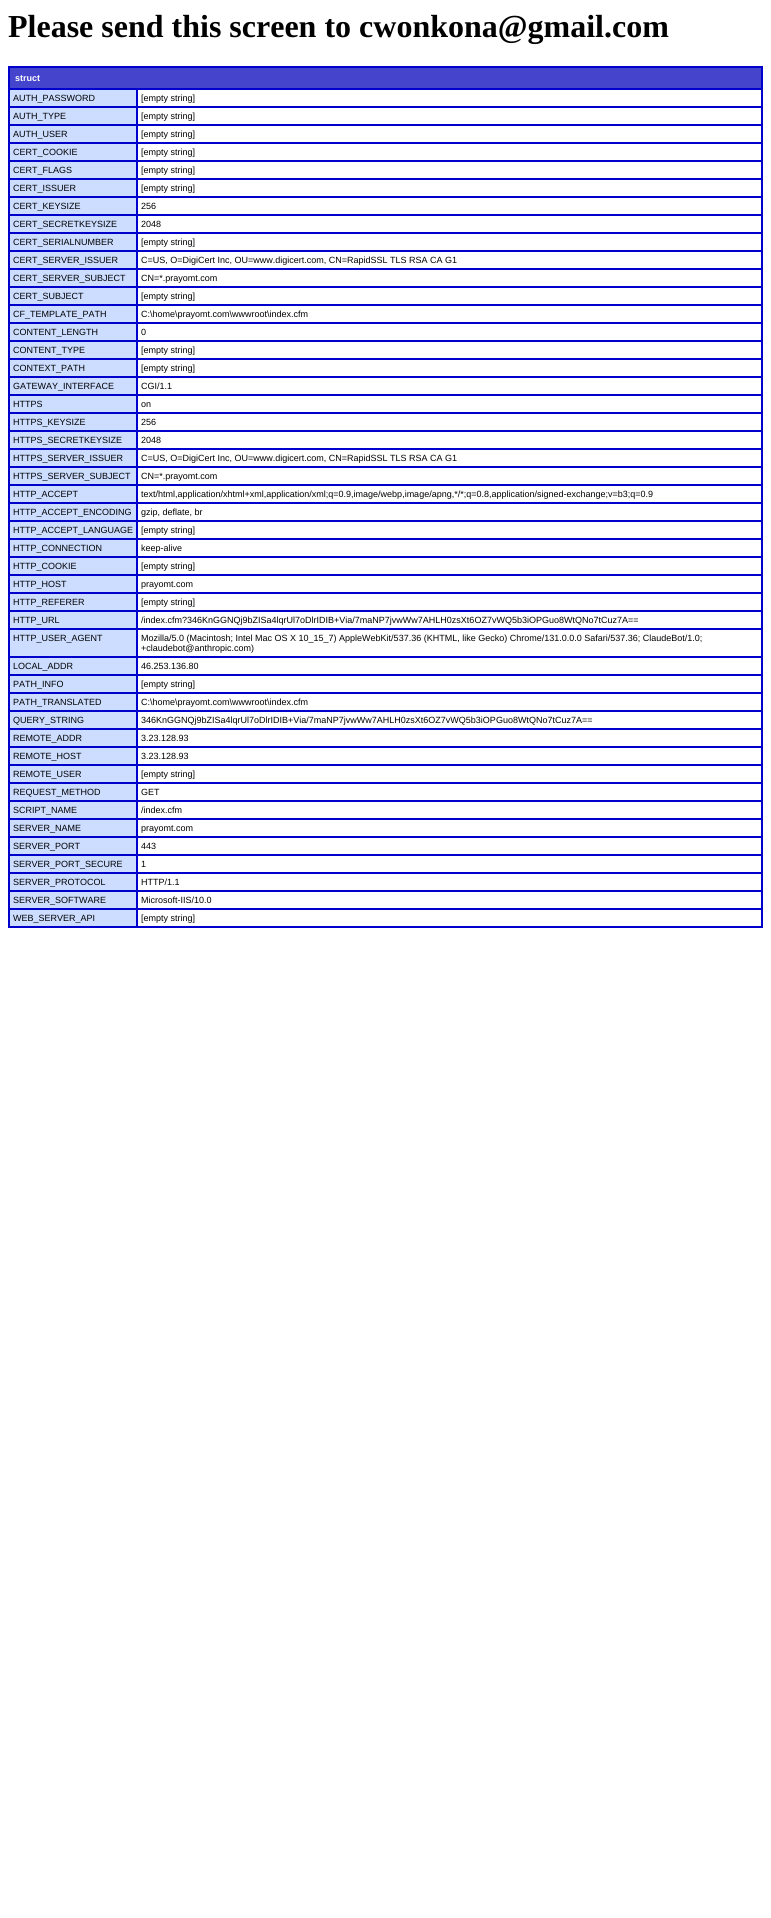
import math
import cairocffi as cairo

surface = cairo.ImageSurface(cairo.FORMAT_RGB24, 771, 1918)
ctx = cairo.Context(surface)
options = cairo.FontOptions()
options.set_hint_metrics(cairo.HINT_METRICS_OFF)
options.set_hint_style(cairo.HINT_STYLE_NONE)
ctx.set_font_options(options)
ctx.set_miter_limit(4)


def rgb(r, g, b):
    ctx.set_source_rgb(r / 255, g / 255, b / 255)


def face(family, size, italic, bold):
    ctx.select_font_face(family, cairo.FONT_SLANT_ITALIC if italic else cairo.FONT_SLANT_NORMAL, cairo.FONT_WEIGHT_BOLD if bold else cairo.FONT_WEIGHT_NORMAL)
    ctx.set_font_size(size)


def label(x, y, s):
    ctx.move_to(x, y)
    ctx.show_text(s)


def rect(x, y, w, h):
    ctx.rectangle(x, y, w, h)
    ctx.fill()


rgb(255, 255, 255)
ctx.paint()
face('Liberation Serif', 32, 0, 1)
rgb(0, 0, 0)
label(8, 37, 'Please send this screen to cwonkona@gmail.com')
rgb(0, 0, 204)
rect(8, 66, 755, 862)
rgb(68, 68, 204)
rect(10, 68, 751, 20)
face('Liberation Sans', 9, 0, 1)
rgb(255, 255, 255)
label(15, 81, 'struct')
rgb(204, 221, 255)
rect(10, 90, 126, 16)
face('Liberation Sans', 9, 0, 0)
rgb(0, 0, 0)
label(13, 101, 'AUTH_PASSWORD')
rgb(255, 255, 255)
rect(138, 90, 623, 16)
rgb(0, 0, 0)
label(141, 101, '[empty string]')
rgb(204, 221, 255)
rect(10, 108, 126, 16)
rgb(0, 0, 0)
label(13, 119, 'AUTH_TYPE')
rgb(255, 255, 255)
rect(138, 108, 623, 16)
rgb(0, 0, 0)
label(141, 119, '[empty string]')
rgb(204, 221, 255)
rect(10, 126, 126, 16)
rgb(0, 0, 0)
label(13, 137, 'AUTH_USER')
rgb(255, 255, 255)
rect(138, 126, 623, 16)
rgb(0, 0, 0)
label(141, 137, '[empty string]')
rgb(204, 221, 255)
rect(10, 144, 126, 16)
rgb(0, 0, 0)
label(13, 155, 'CERT_COOKIE')
rgb(255, 255, 255)
rect(138, 144, 623, 16)
rgb(0, 0, 0)
label(141, 155, '[empty string]')
rgb(204, 221, 255)
rect(10, 162, 126, 16)
rgb(0, 0, 0)
label(13, 173, 'CERT_FLAGS')
rgb(255, 255, 255)
rect(138, 162, 623, 16)
rgb(0, 0, 0)
label(141, 173, '[empty string]')
rgb(204, 221, 255)
rect(10, 180, 126, 16)
rgb(0, 0, 0)
label(13, 191, 'CERT_ISSUER')
rgb(255, 255, 255)
rect(138, 180, 623, 16)
rgb(0, 0, 0)
label(141, 191, '[empty string]')
rgb(204, 221, 255)
rect(10, 198, 126, 16)
rgb(0, 0, 0)
label(13, 209, 'CERT_KEYSIZE')
rgb(255, 255, 255)
rect(138, 198, 623, 16)
rgb(0, 0, 0)
label(141, 209, '256')
rgb(204, 221, 255)
rect(10, 216, 126, 16)
rgb(0, 0, 0)
label(13, 227, 'CERT_SECRETKEYSIZE')
rgb(255, 255, 255)
rect(138, 216, 623, 16)
rgb(0, 0, 0)
label(141, 227, '2048')
rgb(204, 221, 255)
rect(10, 234, 126, 16)
rgb(0, 0, 0)
label(13, 245, 'CERT_SERIALNUMBER')
rgb(255, 255, 255)
rect(138, 234, 623, 16)
rgb(0, 0, 0)
label(141, 245, '[empty string]')
rgb(204, 221, 255)
rect(10, 252, 126, 16)
rgb(0, 0, 0)
label(13, 263, 'CERT_SERVER_ISSUER')
rgb(255, 255, 255)
rect(138, 252, 623, 16)
rgb(0, 0, 0)
label(141, 263, 'C=US, O=DigiCert Inc, OU=www.digicert.com, CN=RapidSSL TLS RSA CA G1')
rgb(204, 221, 255)
rect(10, 270, 126, 16)
rgb(0, 0, 0)
label(13, 281, 'CERT_SERVER_SUBJECT')
rgb(255, 255, 255)
rect(138, 270, 623, 16)
rgb(0, 0, 0)
label(141, 281, 'CN=*.prayomt.com')
rgb(204, 221, 255)
rect(10, 288, 126, 16)
rgb(0, 0, 0)
label(13, 299, 'CERT_SUBJECT')
rgb(255, 255, 255)
rect(138, 288, 623, 16)
rgb(0, 0, 0)
label(141, 299, '[empty string]')
rgb(204, 221, 255)
rect(10, 306, 126, 16)
rgb(0, 0, 0)
label(13, 317, 'CF_TEMPLATE_PATH')
rgb(255, 255, 255)
rect(138, 306, 623, 16)
rgb(0, 0, 0)
label(141, 317, 'C:\\home\\prayomt.com\\wwwroot\\index.cfm')
rgb(204, 221, 255)
rect(10, 324, 126, 16)
rgb(0, 0, 0)
label(13, 335, 'CONTENT_LENGTH')
rgb(255, 255, 255)
rect(138, 324, 623, 16)
rgb(0, 0, 0)
label(141, 335, '0')
rgb(204, 221, 255)
rect(10, 342, 126, 16)
rgb(0, 0, 0)
label(13, 353, 'CONTENT_TYPE')
rgb(255, 255, 255)
rect(138, 342, 623, 16)
rgb(0, 0, 0)
label(141, 353, '[empty string]')
rgb(204, 221, 255)
rect(10, 360, 126, 16)
rgb(0, 0, 0)
label(13, 371, 'CONTEXT_PATH')
rgb(255, 255, 255)
rect(138, 360, 623, 16)
rgb(0, 0, 0)
label(141, 371, '[empty string]')
rgb(204, 221, 255)
rect(10, 378, 126, 16)
rgb(0, 0, 0)
label(13, 389, 'GATEWAY_INTERFACE')
rgb(255, 255, 255)
rect(138, 378, 623, 16)
rgb(0, 0, 0)
label(141, 389, 'CGI/1.1')
rgb(204, 221, 255)
rect(10, 396, 126, 16)
rgb(0, 0, 0)
label(13, 407, 'HTTPS')
rgb(255, 255, 255)
rect(138, 396, 623, 16)
rgb(0, 0, 0)
label(141, 407, 'on')
rgb(204, 221, 255)
rect(10, 414, 126, 16)
rgb(0, 0, 0)
label(13, 425, 'HTTPS_KEYSIZE')
rgb(255, 255, 255)
rect(138, 414, 623, 16)
rgb(0, 0, 0)
label(141, 425, '256')
rgb(204, 221, 255)
rect(10, 432, 126, 16)
rgb(0, 0, 0)
label(13, 443, 'HTTPS_SECRETKEYSIZE')
rgb(255, 255, 255)
rect(138, 432, 623, 16)
rgb(0, 0, 0)
label(141, 443, '2048')
rgb(204, 221, 255)
rect(10, 450, 126, 16)
rgb(0, 0, 0)
label(13, 461, 'HTTPS_SERVER_ISSUER')
rgb(255, 255, 255)
rect(138, 450, 623, 16)
rgb(0, 0, 0)
label(141, 461, 'C=US, O=DigiCert Inc, OU=www.digicert.com, CN=RapidSSL TLS RSA CA G1')
rgb(204, 221, 255)
rect(10, 468, 126, 16)
rgb(0, 0, 0)
label(13, 479, 'HTTPS_SERVER_SUBJECT')
rgb(255, 255, 255)
rect(138, 468, 623, 16)
rgb(0, 0, 0)
label(141, 479, 'CN=*.prayomt.com')
rgb(204, 221, 255)
rect(10, 486, 126, 16)
rgb(0, 0, 0)
label(13, 497, 'HTTP_ACCEPT')
rgb(255, 255, 255)
rect(138, 486, 623, 16)
rgb(0, 0, 0)
label(141, 497, 'text/html,application/xhtml+xml,application/xml;q=0.9,image/webp,image/apng,*/*;q=0.8,application/signed-exchange;v=b3;q=0.9')
rgb(204, 221, 255)
rect(10, 504, 126, 16)
rgb(0, 0, 0)
label(13, 515, 'HTTP_ACCEPT_ENCODING')
rgb(255, 255, 255)
rect(138, 504, 623, 16)
rgb(0, 0, 0)
label(141, 515, 'gzip, deflate, br')
rgb(204, 221, 255)
rect(10, 522, 126, 16)
rgb(0, 0, 0)
label(13, 533, 'HTTP_ACCEPT_LANGUAGE')
rgb(255, 255, 255)
rect(138, 522, 623, 16)
rgb(0, 0, 0)
label(141, 533, '[empty string]')
rgb(204, 221, 255)
rect(10, 540, 126, 16)
rgb(0, 0, 0)
label(13, 551, 'HTTP_CONNECTION')
rgb(255, 255, 255)
rect(138, 540, 623, 16)
rgb(0, 0, 0)
label(141, 551, 'keep-alive')
rgb(204, 221, 255)
rect(10, 558, 126, 16)
rgb(0, 0, 0)
label(13, 569, 'HTTP_COOKIE')
rgb(255, 255, 255)
rect(138, 558, 623, 16)
rgb(0, 0, 0)
label(141, 569, '[empty string]')
rgb(204, 221, 255)
rect(10, 576, 126, 16)
rgb(0, 0, 0)
label(13, 587, 'HTTP_HOST')
rgb(255, 255, 255)
rect(138, 576, 623, 16)
rgb(0, 0, 0)
label(141, 587, 'prayomt.com')
rgb(204, 221, 255)
rect(10, 594, 126, 16)
rgb(0, 0, 0)
label(13, 605, 'HTTP_REFERER')
rgb(255, 255, 255)
rect(138, 594, 623, 16)
rgb(0, 0, 0)
label(141, 605, '[empty string]')
rgb(204, 221, 255)
rect(10, 612, 126, 16)
rgb(0, 0, 0)
label(13, 623, 'HTTP_URL')
rgb(255, 255, 255)
rect(138, 612, 623, 16)
rgb(0, 0, 0)
label(141, 623, '/index.cfm?346KnGGNQj9bZISa4lqrUl7oDlrIDIB+Via/7maNP7jvwWw7AHLH0zsXt6OZ7vWQ5b3iOPGuo8WtQNo7tCuz7A==')
rgb(204, 221, 255)
rect(10, 630, 126, 26)
rgb(0, 0, 0)
label(13, 641, 'HTTP_USER_AGENT')
rgb(255, 255, 255)
rect(138, 630, 623, 26)
rgb(0, 0, 0)
label(141, 641, 'Mozilla/5.0 (Macintosh; Intel Mac OS X 10_15_7) AppleWebKit/537.36 (KHTML, like Gecko) Chrome/131.0.0.0 Safari/537.36; ClaudeBot/1.0;')
label(141, 651, '+claudebot@anthropic.com)')
rgb(204, 221, 255)
rect(10, 658, 126, 16)
rgb(0, 0, 0)
label(13, 669, 'LOCAL_ADDR')
rgb(255, 255, 255)
rect(138, 658, 623, 16)
rgb(0, 0, 0)
label(141, 669, '46.253.136.80')
rgb(204, 221, 255)
rect(10, 676, 126, 16)
rgb(0, 0, 0)
label(13, 687, 'PATH_INFO')
rgb(255, 255, 255)
rect(138, 676, 623, 16)
rgb(0, 0, 0)
label(141, 687, '[empty string]')
rgb(204, 221, 255)
rect(10, 694, 126, 16)
rgb(0, 0, 0)
label(13, 705, 'PATH_TRANSLATED')
rgb(255, 255, 255)
rect(138, 694, 623, 16)
rgb(0, 0, 0)
label(141, 705, 'C:\\home\\prayomt.com\\wwwroot\\index.cfm')
rgb(204, 221, 255)
rect(10, 712, 126, 16)
rgb(0, 0, 0)
label(13, 723, 'QUERY_STRING')
rgb(255, 255, 255)
rect(138, 712, 623, 16)
rgb(0, 0, 0)
label(141, 723, '346KnGGNQj9bZISa4lqrUl7oDlrIDIB+Via/7maNP7jvwWw7AHLH0zsXt6OZ7vWQ5b3iOPGuo8WtQNo7tCuz7A==')
rgb(204, 221, 255)
rect(10, 730, 126, 16)
rgb(0, 0, 0)
label(13, 741, 'REMOTE_ADDR')
rgb(255, 255, 255)
rect(138, 730, 623, 16)
rgb(0, 0, 0)
label(141, 741, '3.23.128.93')
rgb(204, 221, 255)
rect(10, 748, 126, 16)
rgb(0, 0, 0)
label(13, 759, 'REMOTE_HOST')
rgb(255, 255, 255)
rect(138, 748, 623, 16)
rgb(0, 0, 0)
label(141, 759, '3.23.128.93')
rgb(204, 221, 255)
rect(10, 766, 126, 16)
rgb(0, 0, 0)
label(13, 777, 'REMOTE_USER')
rgb(255, 255, 255)
rect(138, 766, 623, 16)
rgb(0, 0, 0)
label(141, 777, '[empty string]')
rgb(204, 221, 255)
rect(10, 784, 126, 16)
rgb(0, 0, 0)
label(13, 795, 'REQUEST_METHOD')
rgb(255, 255, 255)
rect(138, 784, 623, 16)
rgb(0, 0, 0)
label(141, 795, 'GET')
rgb(204, 221, 255)
rect(10, 802, 126, 16)
rgb(0, 0, 0)
label(13, 813, 'SCRIPT_NAME')
rgb(255, 255, 255)
rect(138, 802, 623, 16)
rgb(0, 0, 0)
label(141, 813, '/index.cfm')
rgb(204, 221, 255)
rect(10, 820, 126, 16)
rgb(0, 0, 0)
label(13, 831, 'SERVER_NAME')
rgb(255, 255, 255)
rect(138, 820, 623, 16)
rgb(0, 0, 0)
label(141, 831, 'prayomt.com')
rgb(204, 221, 255)
rect(10, 838, 126, 16)
rgb(0, 0, 0)
label(13, 849, 'SERVER_PORT')
rgb(255, 255, 255)
rect(138, 838, 623, 16)
rgb(0, 0, 0)
label(141, 849, '443')
rgb(204, 221, 255)
rect(10, 856, 126, 16)
rgb(0, 0, 0)
label(13, 867, 'SERVER_PORT_SECURE')
rgb(255, 255, 255)
rect(138, 856, 623, 16)
rgb(0, 0, 0)
label(141, 867, '1')
rgb(204, 221, 255)
rect(10, 874, 126, 16)
rgb(0, 0, 0)
label(13, 885, 'SERVER_PROTOCOL')
rgb(255, 255, 255)
rect(138, 874, 623, 16)
rgb(0, 0, 0)
label(141, 885, 'HTTP/1.1')
rgb(204, 221, 255)
rect(10, 892, 126, 16)
rgb(0, 0, 0)
label(13, 903, 'SERVER_SOFTWARE')
rgb(255, 255, 255)
rect(138, 892, 623, 16)
rgb(0, 0, 0)
label(141, 903, 'Microsoft-IIS/10.0')
rgb(204, 221, 255)
rect(10, 910, 126, 16)
rgb(0, 0, 0)
label(13, 921, 'WEB_SERVER_API')
rgb(255, 255, 255)
rect(138, 910, 623, 16)
rgb(0, 0, 0)
label(141, 921, '[empty string]')
surface.write_to_png('render.png')
